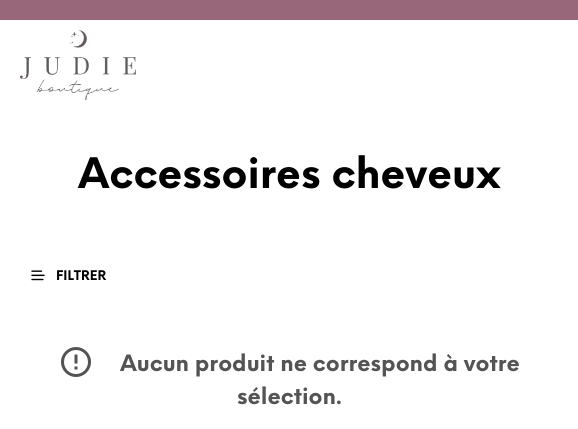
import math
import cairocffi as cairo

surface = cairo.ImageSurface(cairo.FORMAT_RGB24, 578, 429)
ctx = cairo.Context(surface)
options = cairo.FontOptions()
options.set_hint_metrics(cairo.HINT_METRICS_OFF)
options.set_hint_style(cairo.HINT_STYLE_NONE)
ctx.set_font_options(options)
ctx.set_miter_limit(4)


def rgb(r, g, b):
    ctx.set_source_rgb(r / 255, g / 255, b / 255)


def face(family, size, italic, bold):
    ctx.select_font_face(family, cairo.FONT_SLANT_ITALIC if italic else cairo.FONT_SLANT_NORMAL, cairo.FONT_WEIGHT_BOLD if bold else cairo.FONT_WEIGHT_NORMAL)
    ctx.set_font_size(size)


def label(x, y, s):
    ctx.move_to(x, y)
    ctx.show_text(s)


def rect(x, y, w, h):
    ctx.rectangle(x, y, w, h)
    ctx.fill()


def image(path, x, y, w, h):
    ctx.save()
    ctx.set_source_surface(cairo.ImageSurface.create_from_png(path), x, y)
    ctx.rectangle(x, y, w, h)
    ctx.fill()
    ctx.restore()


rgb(255, 255, 255)
ctx.paint()
rgb(153, 103, 122)
rect(0, 0, 578, 20)
image('image0.png', 20, 30, 116, 70)
face('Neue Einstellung', 41, 0, 1)
rgb(0, 0, 0)
label(78, 188, 'Accessoires cheveux')
image('image1.png', 31, 270, 14, 11)
face('Neue Einstellung', 13, 0, 1)
label(56, 280, 'FILTRER')
image('image2.png', 61, 347, 30, 30)
face('Neue Einstellung', 22, 0, 1)
rgb(84, 84, 84)
label(120, 371, 'Aucun produit ne correspond à votre')
label(237, 404, 'sélection.')
surface.write_to_png('render.png')
